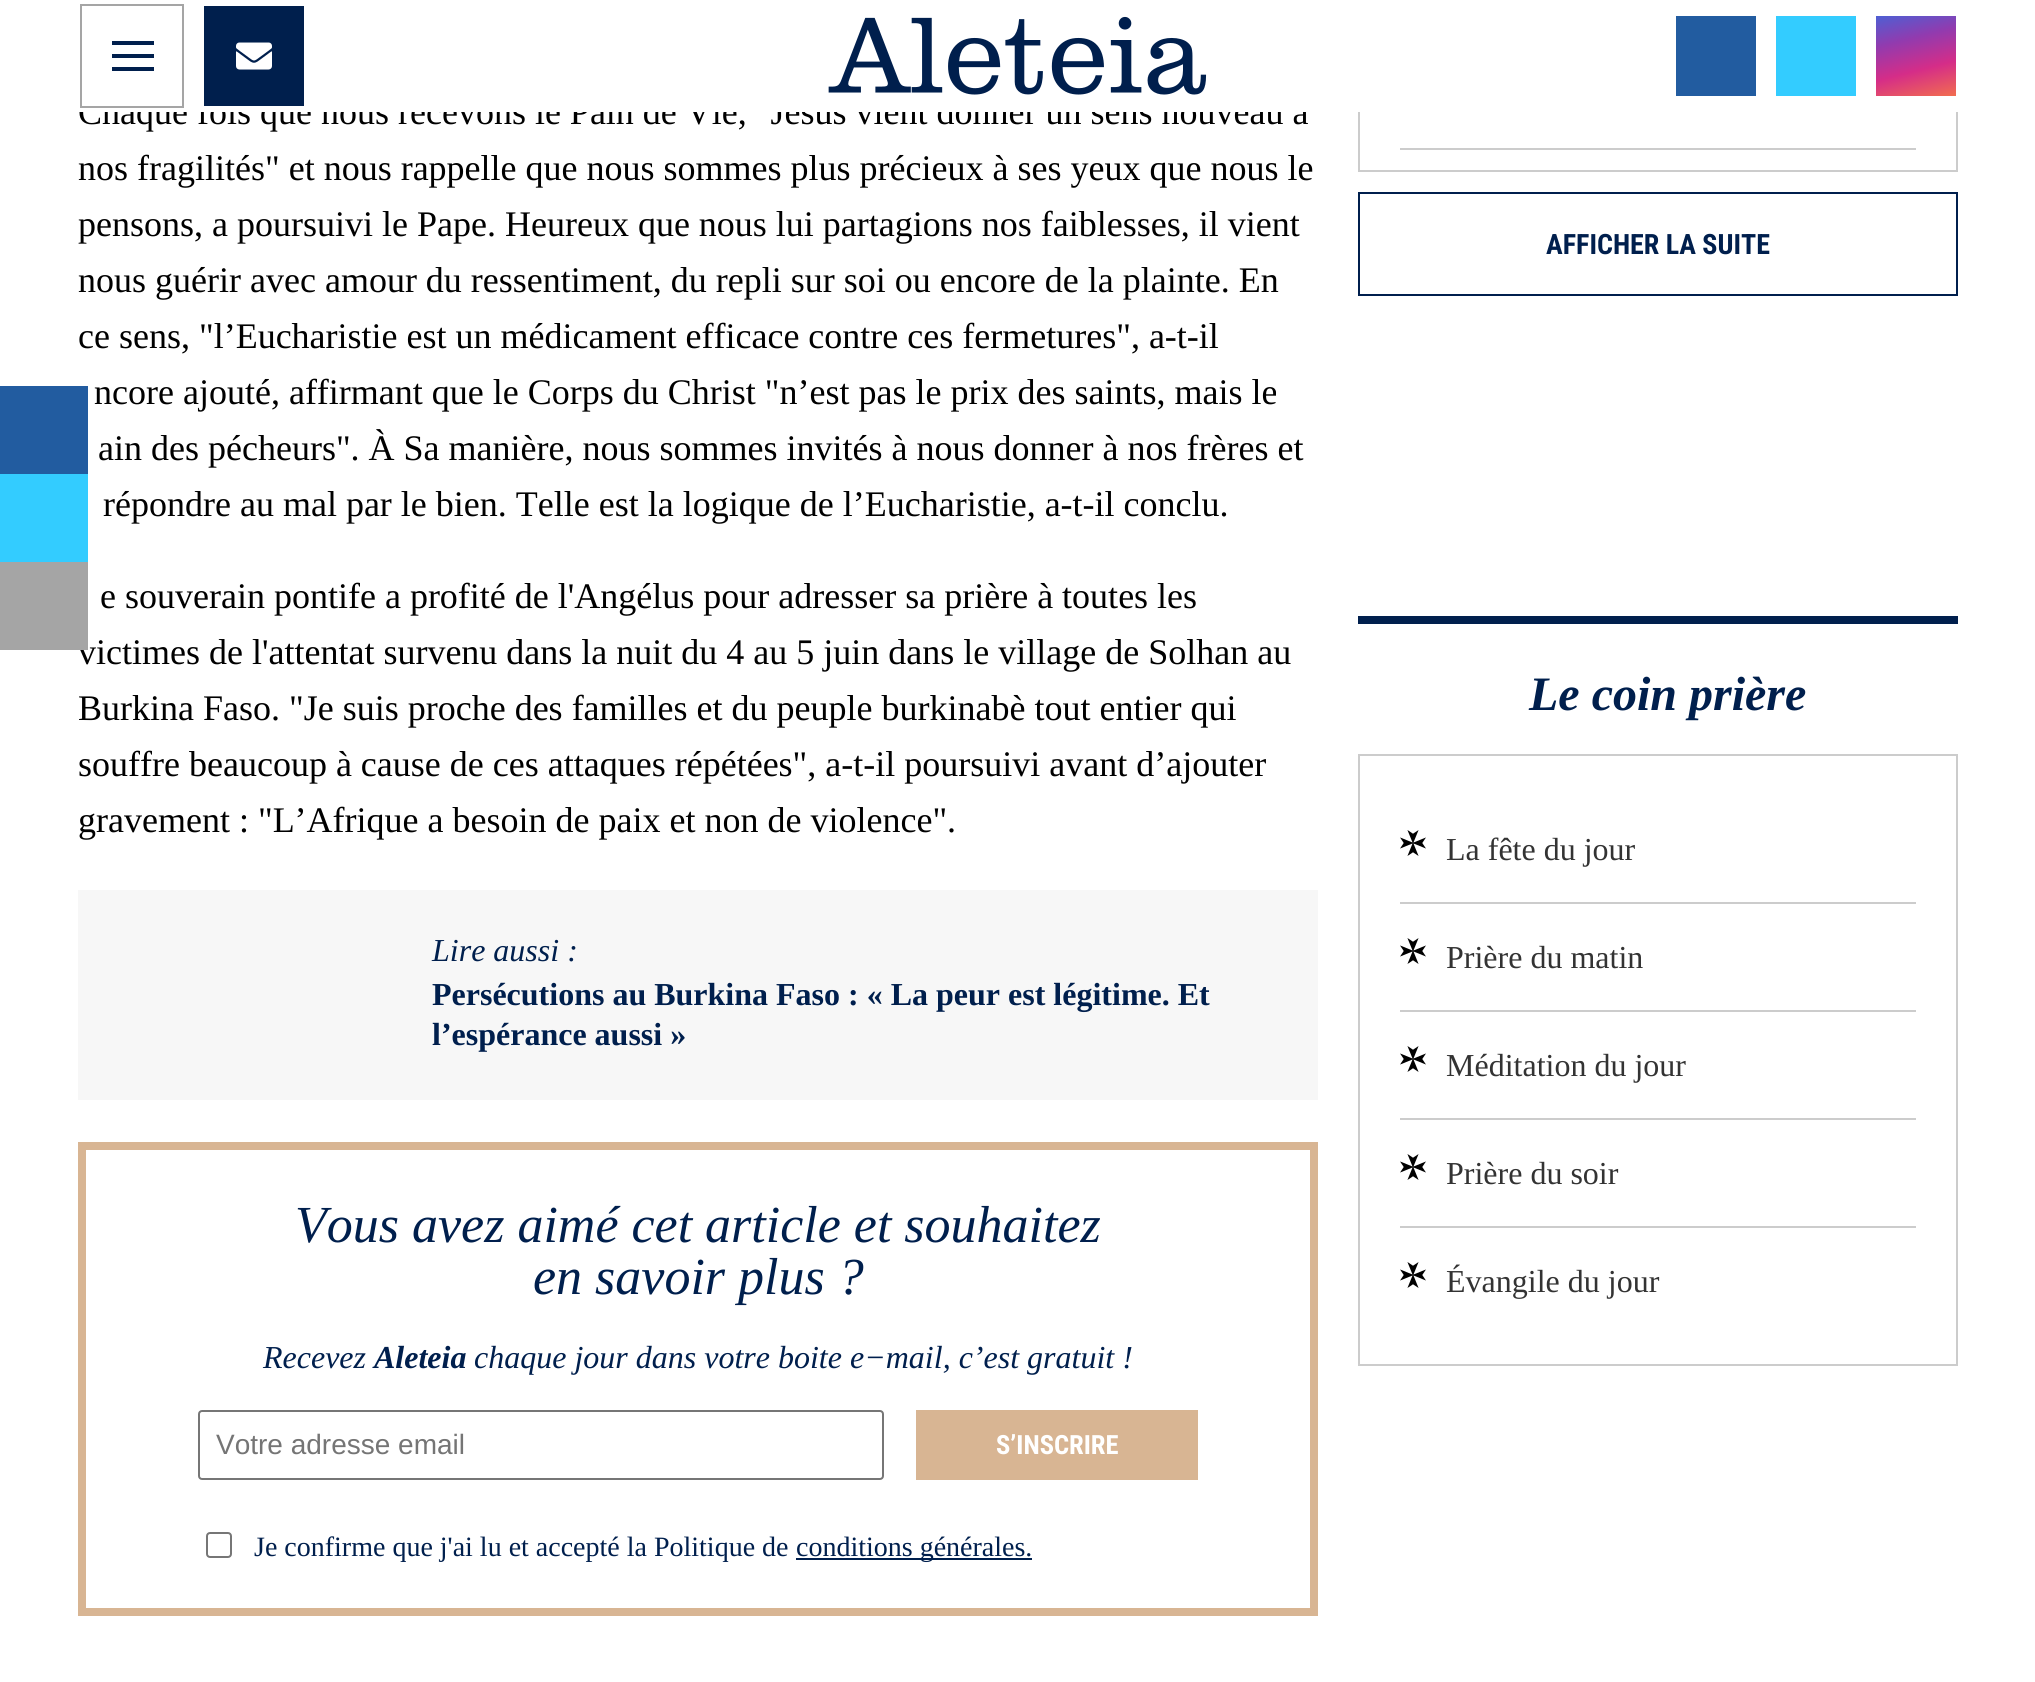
import math
import cairocffi as cairo

surface = cairo.ImageSurface(cairo.FORMAT_RGB24, 2035, 1682)
ctx = cairo.Context(surface)
options = cairo.FontOptions()
options.set_hint_metrics(cairo.HINT_METRICS_OFF)
options.set_hint_style(cairo.HINT_STYLE_NONE)
ctx.set_font_options(options)
ctx.set_miter_limit(4)


def rgb(r, g, b):
    ctx.set_source_rgb(r / 255, g / 255, b / 255)


def face(family, size, italic, bold):
    ctx.select_font_face(family, cairo.FONT_SLANT_ITALIC if italic else cairo.FONT_SLANT_NORMAL, cairo.FONT_WEIGHT_BOLD if bold else cairo.FONT_WEIGHT_NORMAL)
    ctx.set_font_size(size)


def label(x, y, s):
    ctx.move_to(x, y)
    ctx.show_text(s)


def rect(x, y, w, h):
    ctx.rectangle(x, y, w, h)
    ctx.fill()


def rrect(x, y, w, h, r):
    ctx.new_sub_path()
    for i, (u, v) in enumerate([(x + w - r, y + h - r), (x + r, y + h - r), (x + r, y + r), (x + w - r, y + r)]):
        ctx.arc(u, v, r, i * math.pi / 2, (i + 1) * math.pi / 2)
    ctx.close_path()


def image(path, x, y, w, h):
    ctx.save()
    ctx.set_source_surface(cairo.ImageSurface.create_from_png(path), x, y)
    ctx.rectangle(x, y, w, h)
    ctx.fill()
    ctx.restore()


rgb(255, 255, 255)
ctx.paint()
face('Liberation Serif', 36, 0, 0)
rgb(0, 0, 0)
label(78, 124, 'Chaque fois que nous recevons le Pain de Vie, "Jésus vient donner un sens nouveau à')
ctx.rectangle(1359, -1, 598, 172)
rgb(204, 204, 204)
ctx.stroke()
rgb(255, 255, 255)
rect(79, 0, 1879, 112)
ctx.rectangle(81, 5, 102, 102)
rgb(165, 165, 165)
ctx.stroke()
rgb(0, 31, 77)
ctx.set_fill_rule(cairo.FILL_RULE_EVEN_ODD)
ctx.new_path()
ctx.move_to(112, 67)
ctx.line_to(112, 71)
ctx.line_to(154, 71)
ctx.line_to(154, 67)
ctx.close_path()
ctx.move_to(112, 54)
ctx.line_to(112, 58)
ctx.line_to(154, 58)
ctx.line_to(154, 54)
ctx.close_path()
ctx.move_to(112, 41)
ctx.line_to(112, 45)
ctx.line_to(154, 45)
ctx.line_to(154, 41)
ctx.close_path()
ctx.fill()
rect(204, 6, 100, 100)
image('image0.png', 236, 42, 36, 28)
image('image1.png', 828, 16, 379, 79)
rgb(34, 92, 160)
rect(1676, 16, 80, 80)
rgb(51, 204, 255)
rect(1776, 16, 80, 80)
gradient = cairo.LinearGradient(1904, 9, 1928, 103)
gradient.add_color_stop_rgba(0, 0.306, 0.373, 0.827, 1)
gradient.add_color_stop_rgba(0.31, 0.569, 0.231, 0.686, 1)
gradient.add_color_stop_rgba(0.65, 0.835, 0.176, 0.533, 1)
gradient.add_color_stop_rgba(1, 0.949, 0.427, 0.31, 1)
ctx.set_source(gradient)
rect(1876, 16, 80, 80)
rgb(34, 92, 160)
rect(0, 386, 88, 88)
rgb(51, 204, 255)
rect(0, 474, 88, 88)
rgb(0, 0, 0)
label(78, 664, 'victimes de l\'attentat survenu dans la nuit du 4 au 5 juin dans le village de Solhan au')
rgb(165, 165, 165)
rect(0, 562, 88, 88)
rgb(0, 0, 0)
label(78, 180, 'nos fragilités" et nous rappelle que nous sommes plus précieux à ses yeux que nous le')
label(78, 236, 'pensons, a poursuivi le Pape. Heureux que nous lui partagions nos faiblesses, il vient')
label(78, 292, 'nous guérir avec amour du ressentiment, du repli sur soi ou encore de la plainte. En')
label(78, 348, 'ce sens, "l’Eucharistie est un médicament efficace contre ces fermetures", a-t-il')
label(94, 404, 'ncore ajouté, affirmant que le Corps du Christ "n’est pas le prix des saints, mais le')
label(98, 460, 'ain des pécheurs". À Sa manière, nous sommes invités à nous donner à nos frères et')
label(103, 516, 'répondre au mal par le bien. Telle est la logique de l’Eucharistie, a-t-il conclu.')
label(100, 608, 'e souverain pontife a profité de l\'Angélus pour adresser sa prière à toutes les')
label(78, 720, 'Burkina Faso. "Je suis proche des familles et du peuple burkinabè tout entier qui')
label(78, 776, 'souffre beaucoup à cause de ces attaques répétées", a-t-il poursuivi avant d’ajouter')
label(78, 832, 'gravement : "L’Afrique a besoin de paix et non de violence".')
rgb(247, 247, 247)
rect(78, 890, 1240, 210)
face('Liberation Serif', 32, 1, 0)
rgb(0, 31, 77)
label(432, 961, 'Lire aussi :')
face('Liberation Serif', 32, 0, 1)
label(432, 1005, 'Persécutions au Burkina Faso : « La peur est légitime. Et')
label(432, 1045, 'l’espérance aussi »')
ctx.rectangle(82, 1146, 1232, 466)
rgb(216, 181, 147)
ctx.set_line_width(8)
ctx.stroke()
face('Liberation Serif', 52, 1, 0)
rgb(0, 31, 77)
label(295, 1242, 'Vous avez aimé cet article et souhaitez')
label(533, 1294, 'en savoir plus ?')
face('Liberation Serif', 32, 1, 0)
label(263, 1368, 'Recevez')
face('Liberation Serif', 32, 1, 1)
label(374, 1368, 'Aleteia')
face('Liberation Serif', 32, 1, 0)
label(474, 1368, 'chaque jour dans votre boite e−mail, c’est gratuit !')
rrect(199, 1411, 684, 68, 3)
rgb(118, 118, 118)
ctx.set_line_width(2)
ctx.stroke()
face('Liberation Sans', 28, 0, 0)
rgb(117, 117, 117)
label(216, 1454, 'Votre adresse email')
rgb(216, 181, 147)
rect(916, 1410, 282, 70)
face('Roboto Condensed', 26.5, 0, 1)
rgb(255, 255, 255)
label(996, 1454, 'S’INSCRIRE')
rrect(207, 1533, 24, 24, 3)
rgb(118, 118, 118)
ctx.stroke()
face('Liberation Serif', 28, 0, 0)
rgb(0, 31, 77)
label(254, 1556, 'Je confirme que j\'ai lu et accepté la Politique de')
rect(796, 1558, 236, 2)
label(796, 1556, 'conditions générales.')
rgb(204, 204, 204)
rect(1400, 148, 516, 2)
ctx.rectangle(1359, 193, 598, 102)
rgb(0, 31, 77)
ctx.stroke()
face('Roboto Condensed', 28, 0, 1)
label(1546, 254, 'AFFICHER LA SUITE')
rect(1358, 616, 600, 8)
face('Liberation Serif', 48, 1, 1)
label(1529, 710, 'Le coin prière')
ctx.rectangle(1359, 755, 598, 610)
rgb(204, 204, 204)
ctx.stroke()
image('image2.png', 1400, 830, 26, 26)
face('Liberation Serif', 32, 0, 0)
rgb(51, 51, 51)
label(1446, 860, 'La fête du jour')
rgb(204, 204, 204)
rect(1400, 902, 516, 2)
image('image2.png', 1400, 938, 26, 26)
rgb(51, 51, 51)
label(1446, 968, 'Prière du matin')
rgb(204, 204, 204)
rect(1400, 1010, 516, 2)
image('image2.png', 1400, 1046, 26, 26)
rgb(51, 51, 51)
label(1446, 1076, 'Méditation du jour')
rgb(204, 204, 204)
rect(1400, 1118, 516, 2)
image('image2.png', 1400, 1154, 26, 26)
rgb(51, 51, 51)
label(1446, 1184, 'Prière du soir')
rgb(204, 204, 204)
rect(1400, 1226, 516, 2)
image('image2.png', 1400, 1262, 26, 26)
rgb(51, 51, 51)
label(1446, 1292, 'Évangile du jour')
surface.write_to_png('render.png')
